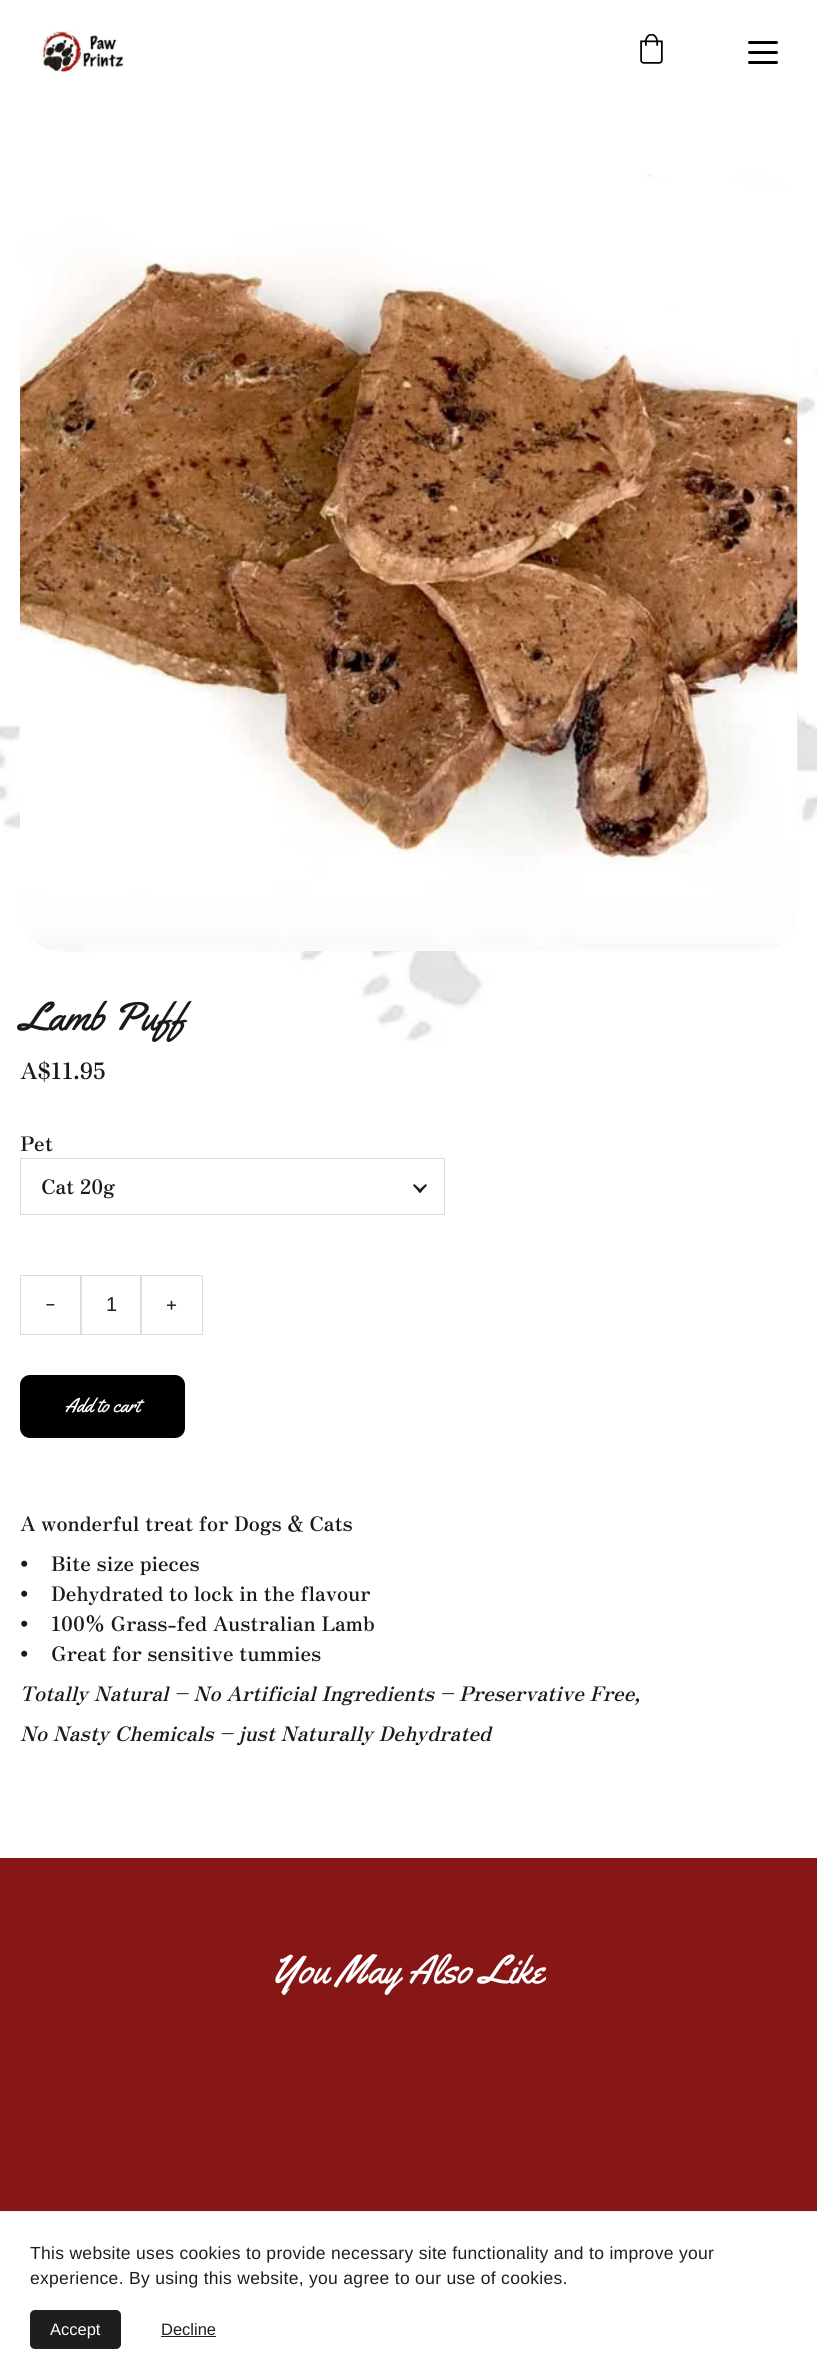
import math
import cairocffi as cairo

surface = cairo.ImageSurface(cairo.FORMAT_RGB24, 817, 2376)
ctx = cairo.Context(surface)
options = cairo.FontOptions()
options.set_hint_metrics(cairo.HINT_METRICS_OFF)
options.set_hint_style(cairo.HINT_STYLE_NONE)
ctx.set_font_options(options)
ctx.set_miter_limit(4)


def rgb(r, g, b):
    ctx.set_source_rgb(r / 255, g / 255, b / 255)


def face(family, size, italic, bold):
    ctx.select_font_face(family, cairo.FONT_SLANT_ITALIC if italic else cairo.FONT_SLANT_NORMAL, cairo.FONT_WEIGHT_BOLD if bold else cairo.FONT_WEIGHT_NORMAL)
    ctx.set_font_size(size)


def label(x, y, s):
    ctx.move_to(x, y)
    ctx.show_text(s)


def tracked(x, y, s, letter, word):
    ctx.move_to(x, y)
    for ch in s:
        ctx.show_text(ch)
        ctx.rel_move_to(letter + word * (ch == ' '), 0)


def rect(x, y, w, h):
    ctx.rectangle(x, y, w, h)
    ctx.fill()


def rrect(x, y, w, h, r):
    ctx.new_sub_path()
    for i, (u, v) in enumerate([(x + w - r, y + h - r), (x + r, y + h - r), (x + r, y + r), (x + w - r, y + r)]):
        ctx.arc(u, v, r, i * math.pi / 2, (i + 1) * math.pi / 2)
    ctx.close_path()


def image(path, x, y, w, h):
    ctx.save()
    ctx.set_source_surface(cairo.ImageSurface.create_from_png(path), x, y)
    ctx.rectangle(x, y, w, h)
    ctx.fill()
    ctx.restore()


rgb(255, 255, 255)
ctx.paint()
image('image0.png', 41, 30, 83, 42)
image('image1.png', 640, 34, 23, 30)
rgb(0, 0, 0)
rrect(748, 41, 30, 3, 1.5)
ctx.fill()
rrect(748, 51, 30, 3, 1.5)
ctx.fill()
rrect(748, 61, 30, 3, 1.5)
ctx.fill()
image('image2.png', 0, 337, 817, 705)
image('image3.png', 20, 174, 778, 777)
face('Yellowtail', 40, 0, 0)
rgb(26, 26, 26)
label(20, 1030, 'Lamb Puff')
face('Zen Antique Soft', 22.5, 0, 0)
label(20, 1079, 'A$11.95')
face('Zen Antique Soft', 20, 0, 0)
label(20, 1151, 'Pet')
ctx.rectangle(20.5, 1158.5, 424, 56)
rgb(218, 220, 224)
ctx.set_line_width(1)
ctx.stroke()
rgb(26, 26, 26)
label(41, 1194, 'Cat 20g')
rgb(29, 30, 32)
ctx.new_path()
ctx.move_to(427, 1185.5)
ctx.line_to(420, 1193)
ctx.line_to(418, 1191)
ctx.line_to(425.5, 1184)
ctx.close_path()
ctx.fill()
ctx.new_path()
ctx.move_to(422, 1191)
ctx.line_to(420, 1193)
ctx.line_to(413, 1185.5)
ctx.line_to(414.5, 1184)
ctx.close_path()
ctx.fill()
ctx.rectangle(20.5, 1275.5, 182, 59)
rgb(218, 220, 224)
ctx.stroke()
rect(80, 1276, 2, 58)
face('DM Sans', 20, 0, 0)
rgb(29, 30, 32)
label(45, 1311, '-')
rgb(218, 220, 224)
rect(140, 1276, 2, 58)
face('Liberation Sans', 20, 0, 0)
rgb(29, 30, 32)
label(106, 1311, '1')
face('DM Sans', 20, 0, 0)
label(166, 1311, '+')
rgb(0, 0, 0)
rrect(20, 1375, 165, 63, 10)
ctx.fill()
face('Yellowtail', 20, 0, 0)
rgb(255, 255, 255)
label(65, 1412, 'Add to cart')
face('Zen Antique Soft', 20, 0, 0)
rgb(26, 26, 26)
label(20, 1531, 'A wonderful treat for Dogs & Cats')
label(20, 1571, '•    Bite size pieces')
label(20, 1601, '•    Dehydrated to lock in the flavour')
label(20, 1631, '•    100% Grass-fed Australian Lamb')
label(20, 1661, '•    Great for sensitive tummies')
face('Zen Antique Soft', 20, 1, 0)
label(20, 1701, 'Totally Natural – No Artificial Ingredients – Preservative Free,')
label(20, 1741, 'No Nasty Chemicals – just Naturally Dehydrated')
rgb(135, 23, 23)
rect(0, 1858, 817, 353)
face('Yellowtail', 40, 0, 0)
rgb(255, 255, 255)
label(272, 1983, 'You May Also Like')
rgb(242, 243, 246)
rect(0, 2211, 817, 1)
face('Liberation Sans', 17.5, 0, 0)
rgb(29, 30, 32)
tracked(30, 2259, 'This website uses cookies to provide necessary site functionality and to improve your', 0.3, 0)
tracked(30, 2284, 'experience. By using this website, you agree to our use of cookies.', 0.3, 0)
rrect(30, 2310, 91, 39, 5)
ctx.fill()
face('Liberation Sans', 16.5, 0, 0)
rgb(255, 255, 255)
label(50, 2335, 'Accept')
rgb(29, 30, 32)
label(161, 2335, 'Decline')
rect(161, 2336, 55, 1)
surface.write_to_png('render.png')
